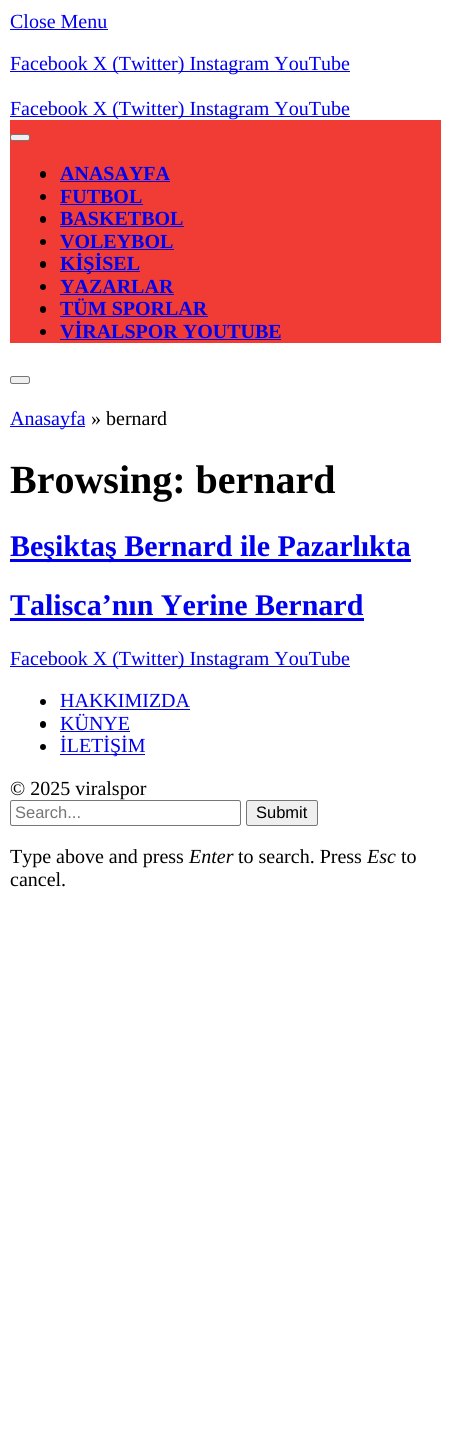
import math
import cairocffi as cairo

surface = cairo.ImageSurface(cairo.FORMAT_RGB24, 451, 1453)
ctx = cairo.Context(surface)
options = cairo.FontOptions()
options.set_hint_metrics(cairo.HINT_METRICS_OFF)
options.set_hint_style(cairo.HINT_STYLE_NONE)
ctx.set_font_options(options)
ctx.set_miter_limit(4)


def rgb(r, g, b):
    ctx.set_source_rgb(r / 255, g / 255, b / 255)


def face(family, size, italic, bold):
    ctx.select_font_face(family, cairo.FONT_SLANT_ITALIC if italic else cairo.FONT_SLANT_NORMAL, cairo.FONT_WEIGHT_BOLD if bold else cairo.FONT_WEIGHT_NORMAL)
    ctx.set_font_size(size)


def label(x, y, s):
    ctx.move_to(x, y)
    ctx.show_text(s)


def rect(x, y, w, h):
    ctx.rectangle(x, y, w, h)
    ctx.fill()


def rrect(x, y, w, h, r):
    ctx.new_sub_path()
    for i, (u, v) in enumerate([(x + w - r, y + h - r), (x + r, y + h - r), (x + r, y + r), (x + w - r, y + r)]):
        ctx.arc(u, v, r, i * math.pi / 2, (i + 1) * math.pi / 2)
    ctx.close_path()


rgb(255, 255, 255)
ctx.paint()
face('Liberation Serif', 20, 0, 0)
rgb(0, 0, 238)
label(10, 28, 'Close Menu')
rect(10, 29, 98, 1)
rect(10, 71, 340, 1)
label(10, 70, 'Facebook X (Twitter) Instagram YouTube')
rect(10, 116, 340, 1)
label(10, 115, 'Facebook X (Twitter) Instagram YouTube')
rgb(240, 60, 52)
rect(10, 120, 431, 223)
rgb(239, 239, 239)
rrect(10.5, 134.5, 19, 6, 2)
ctx.fill_preserve()
rgb(118, 118, 118)
ctx.set_line_width(1)
ctx.stroke()
rgb(0, 0, 0)
rrect(40, 171, 6, 7, 3)
ctx.fill()
face('Liberation Serif', 20, 0, 1)
rgb(0, 0, 238)
label(60, 180, 'ANASAYFA')
rect(60, 181, 110, 1)
rgb(0, 0, 0)
ctx.new_path()
ctx.arc(43, 197, 3, 0, 2 * math.pi)
ctx.fill()
rgb(0, 0, 238)
label(60, 203, 'FUTBOL')
rect(60, 204, 83, 1)
rgb(0, 0, 0)
rrect(40, 216, 6, 7, 3)
ctx.fill()
rgb(0, 0, 238)
label(60, 225, 'BASKETBOL')
rect(60, 226, 124, 1)
rgb(0, 0, 0)
ctx.new_path()
ctx.arc(43, 242, 3, 0, 2 * math.pi)
ctx.fill()
rgb(0, 0, 238)
label(60, 248, 'VOLEYBOL')
rect(60, 249, 114, 1)
rgb(0, 0, 0)
rrect(40, 261, 6, 7, 3)
ctx.fill()
rgb(0, 0, 238)
rect(60, 271, 80, 1)
label(60, 270, 'KİŞİSEL')
rgb(0, 0, 0)
ctx.new_path()
ctx.arc(43, 287, 3, 0, 2 * math.pi)
ctx.fill()
rgb(0, 0, 238)
label(60, 293, 'YAZARLAR')
rect(60, 294, 114, 1)
rgb(0, 0, 0)
rrect(40, 306, 6, 7, 3)
ctx.fill()
rgb(0, 0, 238)
label(60, 315, 'TÜM SPORLAR')
rect(60, 316, 148, 1)
rgb(0, 0, 0)
ctx.new_path()
ctx.arc(43, 332, 3, 0, 2 * math.pi)
ctx.fill()
rgb(0, 0, 238)
label(60, 338, 'VİRALSPOR YOUTUBE')
rect(60, 339, 221, 1)
rgb(239, 239, 239)
rrect(10.5, 376.5, 19, 7, 2)
ctx.fill_preserve()
rgb(118, 118, 118)
ctx.stroke()
rgb(0, 0, 238)
rect(10, 426, 75, 1)
face('Liberation Serif', 20, 0, 0)
label(10, 425, 'Anasayfa')
rgb(0, 0, 0)
label(91, 425, '» bernard')
face('Liberation Serif', 40, 0, 1)
label(10, 493, 'Browsing: bernard')
rgb(0, 0, 238)
rect(10, 559, 401, 3)
face('Liberation Serif', 30, 0, 1)
label(10, 556, 'Beşiktaş Bernard ile Pazarlıkta')
label(10, 615, 'Talisca’nın Yerine Bernard')
rect(10, 618, 354, 3)
rect(10, 666, 340, 1)
face('Liberation Serif', 20, 0, 0)
label(10, 665, 'Facebook X (Twitter) Instagram YouTube')
rgb(0, 0, 0)
ctx.new_path()
ctx.arc(43, 702, 3, 0, 2 * math.pi)
ctx.fill()
rgb(0, 0, 238)
label(60, 707, 'HAKKIMIZDA')
rect(60, 709, 130, 1)
rgb(0, 0, 0)
rrect(40, 721, 6, 7, 3)
ctx.fill()
rgb(0, 0, 238)
label(60, 730, 'KÜNYE')
rect(60, 731, 70, 1)
rgb(0, 0, 0)
ctx.new_path()
ctx.arc(43, 747, 3, 0, 2 * math.pi)
ctx.fill()
rgb(0, 0, 238)
rect(60, 754, 85, 1)
label(60, 752, 'İLETİŞİM')
rgb(0, 0, 0)
label(10, 795, '© 2025 viralspor')
rrect(10.5, 800.5, 230, 25, 2)
rgb(118, 118, 118)
ctx.stroke()
face('Liberation Sans', 16.5, 0, 0)
rgb(117, 117, 117)
label(15, 818, 'Search...')
rgb(239, 239, 239)
rrect(246.5, 800.5, 71, 25, 2)
ctx.fill_preserve()
rgb(118, 118, 118)
ctx.stroke()
rgb(0, 0, 0)
label(256, 818, 'Submit')
face('Liberation Serif', 20, 0, 0)
label(10, 863, 'Type above and press')
face('Liberation Serif', 20, 1, 0)
label(189, 863, 'Enter')
face('Liberation Serif', 20, 0, 0)
label(238, 863, 'to search. Press')
face('Liberation Serif', 20, 1, 0)
label(367, 863, 'Esc')
face('Liberation Serif', 20, 0, 0)
label(401, 863, 'to')
label(10, 886, 'cancel.')
surface.write_to_png('render.png')
